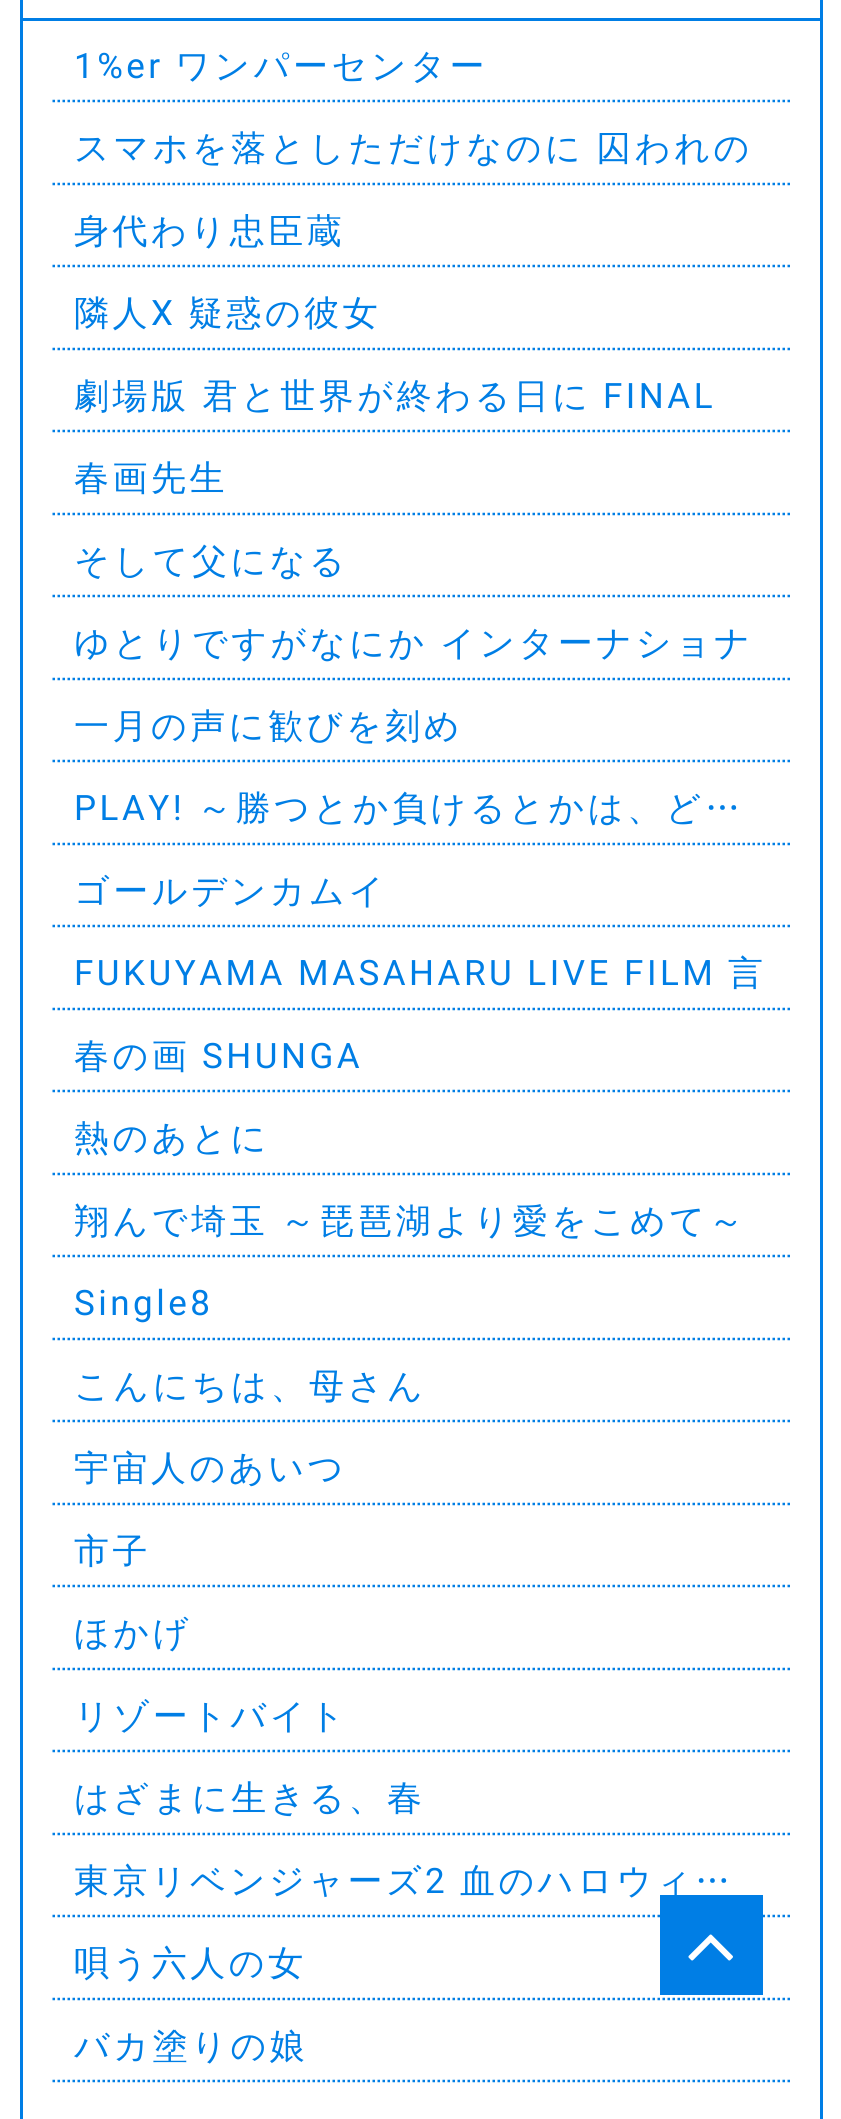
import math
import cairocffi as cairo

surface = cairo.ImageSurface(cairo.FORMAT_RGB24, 841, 2119)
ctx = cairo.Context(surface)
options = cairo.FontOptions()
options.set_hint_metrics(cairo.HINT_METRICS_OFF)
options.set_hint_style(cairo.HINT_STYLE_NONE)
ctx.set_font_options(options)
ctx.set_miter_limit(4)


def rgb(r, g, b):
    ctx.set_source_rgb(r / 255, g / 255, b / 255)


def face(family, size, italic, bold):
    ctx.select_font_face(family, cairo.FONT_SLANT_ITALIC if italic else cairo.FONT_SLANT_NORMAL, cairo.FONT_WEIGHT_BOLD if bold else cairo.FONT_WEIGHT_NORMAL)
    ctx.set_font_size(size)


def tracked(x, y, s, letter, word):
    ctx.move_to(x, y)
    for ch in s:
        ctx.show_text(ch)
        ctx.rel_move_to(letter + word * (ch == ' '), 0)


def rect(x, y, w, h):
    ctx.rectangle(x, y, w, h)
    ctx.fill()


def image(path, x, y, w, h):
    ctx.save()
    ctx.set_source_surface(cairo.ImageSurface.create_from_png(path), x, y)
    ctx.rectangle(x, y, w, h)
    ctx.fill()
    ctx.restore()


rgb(255, 255, 255)
ctx.paint()
ctx.rectangle(21.5, -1.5, 800, 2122)
rgb(0, 126, 229)
ctx.set_line_width(3)
ctx.stroke()
rect(23, 18, 797, 3)
ctx.new_path()
ctx.move_to(52.5, 101)
ctx.line_to(790, 101)
ctx.set_line_width(2.5)
ctx.set_dash([2.5, 2.5])
ctx.stroke()
face('Roboto', 35, 0, 0)
tracked(74, 78, '1%er', 3.5, 0)
face('WenQuanYi Zen Hei Medium', 35, 0, 0)
tracked(175, 78, 'ワンパーセンター', 3.5, 0)
ctx.new_path()
ctx.move_to(52.5, 184)
ctx.line_to(790, 184)
ctx.stroke()
tracked(74, 160, 'スマホを落としただけなのに 囚われの', 3.5, -2)
ctx.new_path()
ctx.move_to(52.5, 266)
ctx.line_to(790, 266)
ctx.stroke()
tracked(74, 243, '身代わり忠臣蔵', 3.5, 0)
ctx.new_path()
ctx.move_to(52.5, 349)
ctx.line_to(790, 349)
ctx.stroke()
tracked(74, 325, '隣人', 3.5, 0)
face('Roboto', 35, 0, 0)
tracked(151, 325, 'X', 3.5, 0)
face('WenQuanYi Zen Hei Medium', 35, 0, 0)
tracked(188, 325, '疑惑の彼女', 3.5, 0)
ctx.new_path()
ctx.move_to(52.5, 431)
ctx.line_to(790, 431)
ctx.stroke()
tracked(74, 408, '劇場版 君と世界が終わる日に', 3.5, -1)
face('Roboto', 35, 0, 0)
tracked(603, 408, 'FINAL', 3.5, 0)
ctx.new_path()
ctx.move_to(52.5, 514)
ctx.line_to(790, 514)
ctx.stroke()
face('WenQuanYi Zen Hei Medium', 35, 0, 0)
tracked(74, 490, '春画先生', 3.5, 0)
ctx.new_path()
ctx.move_to(52.5, 596)
ctx.line_to(790, 596)
ctx.stroke()
tracked(74, 573, 'そして父になる', 3.5, 0)
ctx.new_path()
ctx.move_to(52.5, 679)
ctx.line_to(790, 679)
ctx.stroke()
tracked(74, 655, 'ゆとりですがなにか インターナショナ', 3.5, -2)
ctx.new_path()
ctx.move_to(52.5, 761)
ctx.line_to(790, 761)
ctx.stroke()
tracked(74, 738, '一月の声に歓びを刻め', 3.5, 0)
ctx.new_path()
ctx.move_to(52.5, 844)
ctx.line_to(790, 844)
ctx.stroke()
face('Roboto', 35, 0, 0)
tracked(74, 820, 'PLAY!', 3.5, 0)
face('WenQuanYi Zen Hei Medium', 35, 0, 0)
tracked(197, 820, '～勝つとか負けるとかは、ど…', 3.5, 0)
ctx.new_path()
ctx.move_to(52.5, 926)
ctx.line_to(790, 926)
ctx.stroke()
tracked(74, 903, 'ゴールデンカムイ', 3.5, 0)
ctx.new_path()
ctx.move_to(52.5, 1009)
ctx.line_to(790, 1009)
ctx.stroke()
face('Roboto', 35, 0, 0)
tracked(74, 985, 'FUKUYAMA MASAHARU LIVE FILM', 3.5, 0)
face('WenQuanYi Zen Hei Medium', 35, 0, 0)
tracked(728, 985, '言', 3.5, 0)
ctx.new_path()
ctx.move_to(52.5, 1091)
ctx.line_to(790, 1091)
ctx.stroke()
tracked(74, 1068, '春の画', 3.5, 0)
face('Roboto', 35, 0, 0)
tracked(202, 1068, 'SHUNGA', 3.5, 0)
ctx.new_path()
ctx.move_to(52.5, 1174)
ctx.line_to(790, 1174)
ctx.stroke()
face('WenQuanYi Zen Hei Medium', 35, 0, 0)
tracked(74, 1150, '熱のあとに', 3.5, 0)
ctx.new_path()
ctx.move_to(52.5, 1256)
ctx.line_to(790, 1256)
ctx.stroke()
tracked(74, 1233, '翔んで埼玉 ～琵琶湖より愛をこめて～', 3.5, -2)
ctx.new_path()
ctx.move_to(52.5, 1339)
ctx.line_to(790, 1339)
ctx.stroke()
face('Roboto', 35, 0, 0)
tracked(74, 1315, 'Single8', 3.5, 0)
ctx.new_path()
ctx.move_to(52.5, 1421)
ctx.line_to(790, 1421)
ctx.stroke()
face('WenQuanYi Zen Hei Medium', 35, 0, 0)
tracked(74, 1398, 'こんにちは、母さん', 3.5, 0)
ctx.new_path()
ctx.move_to(52.5, 1504)
ctx.line_to(790, 1504)
ctx.stroke()
tracked(74, 1480, '宇宙人のあいつ', 3.5, 0)
ctx.new_path()
ctx.move_to(52.5, 1586)
ctx.line_to(790, 1586)
ctx.stroke()
tracked(74, 1563, '市子', 3.5, 0)
ctx.new_path()
ctx.move_to(52.5, 1669)
ctx.line_to(790, 1669)
ctx.stroke()
tracked(74, 1645, 'ほかげ', 3.5, 0)
ctx.new_path()
ctx.move_to(52.5, 1751)
ctx.line_to(790, 1751)
ctx.stroke()
tracked(74, 1728, 'リゾートバイト', 3.5, 0)
ctx.new_path()
ctx.move_to(52.5, 1834)
ctx.line_to(790, 1834)
ctx.stroke()
tracked(74, 1810, 'はざまに生きる、春', 3.5, 0)
ctx.new_path()
ctx.move_to(52.5, 1916)
ctx.line_to(790, 1916)
ctx.stroke()
tracked(74, 1893, '東京リベンジャーズ', 3.5, 0)
face('Roboto', 35, 0, 0)
tracked(425, 1893, '2', 3.5, 0)
face('WenQuanYi Zen Hei Medium', 35, 0, 0)
tracked(460, 1893, '血のハロウィ…', 3.5, 0)
ctx.new_path()
ctx.move_to(52.5, 1999)
ctx.line_to(790, 1999)
ctx.stroke()
tracked(74, 1975, '唄う六人の女', 3.5, 0)
ctx.new_path()
ctx.move_to(52.5, 2081)
ctx.line_to(790, 2081)
ctx.stroke()
tracked(74, 2058, 'バカ塗りの娘', 3.5, 0)
rect(660, 1895, 103, 100)
image('image0.png', 688, 1934, 45, 27)
surface.write_to_png('render.png')
